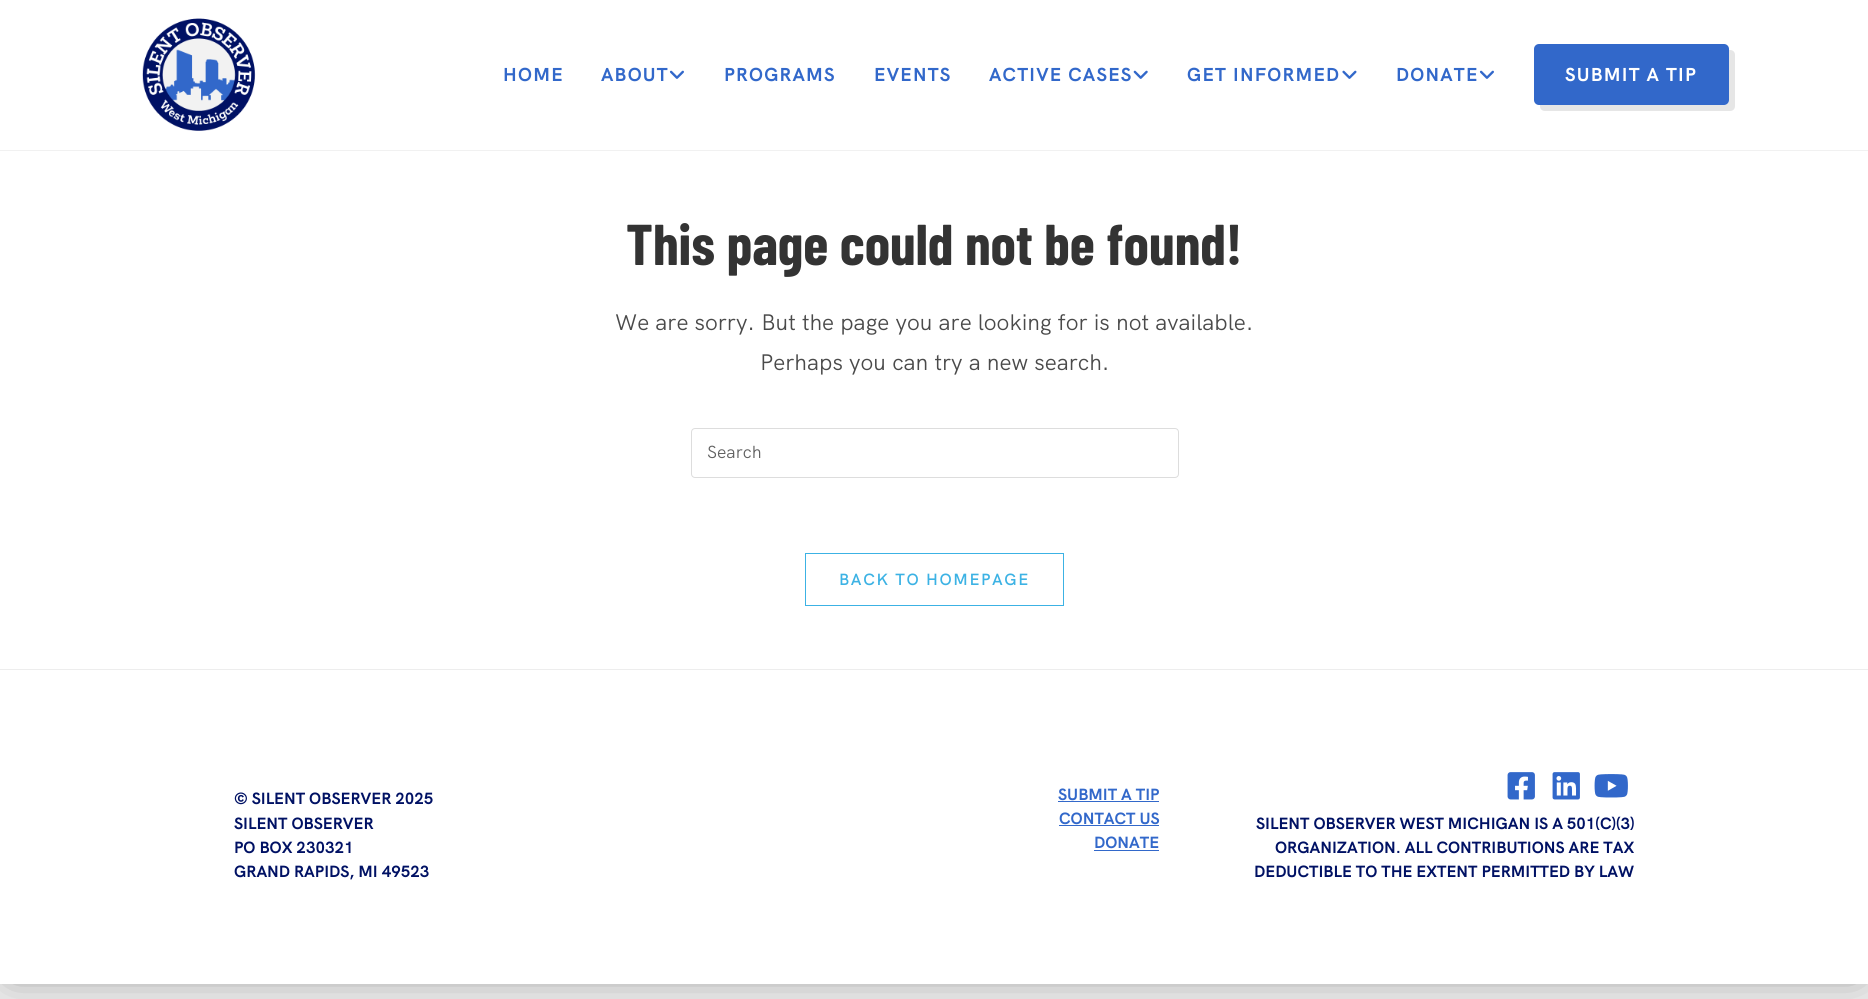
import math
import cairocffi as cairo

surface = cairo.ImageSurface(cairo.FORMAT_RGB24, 1868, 999)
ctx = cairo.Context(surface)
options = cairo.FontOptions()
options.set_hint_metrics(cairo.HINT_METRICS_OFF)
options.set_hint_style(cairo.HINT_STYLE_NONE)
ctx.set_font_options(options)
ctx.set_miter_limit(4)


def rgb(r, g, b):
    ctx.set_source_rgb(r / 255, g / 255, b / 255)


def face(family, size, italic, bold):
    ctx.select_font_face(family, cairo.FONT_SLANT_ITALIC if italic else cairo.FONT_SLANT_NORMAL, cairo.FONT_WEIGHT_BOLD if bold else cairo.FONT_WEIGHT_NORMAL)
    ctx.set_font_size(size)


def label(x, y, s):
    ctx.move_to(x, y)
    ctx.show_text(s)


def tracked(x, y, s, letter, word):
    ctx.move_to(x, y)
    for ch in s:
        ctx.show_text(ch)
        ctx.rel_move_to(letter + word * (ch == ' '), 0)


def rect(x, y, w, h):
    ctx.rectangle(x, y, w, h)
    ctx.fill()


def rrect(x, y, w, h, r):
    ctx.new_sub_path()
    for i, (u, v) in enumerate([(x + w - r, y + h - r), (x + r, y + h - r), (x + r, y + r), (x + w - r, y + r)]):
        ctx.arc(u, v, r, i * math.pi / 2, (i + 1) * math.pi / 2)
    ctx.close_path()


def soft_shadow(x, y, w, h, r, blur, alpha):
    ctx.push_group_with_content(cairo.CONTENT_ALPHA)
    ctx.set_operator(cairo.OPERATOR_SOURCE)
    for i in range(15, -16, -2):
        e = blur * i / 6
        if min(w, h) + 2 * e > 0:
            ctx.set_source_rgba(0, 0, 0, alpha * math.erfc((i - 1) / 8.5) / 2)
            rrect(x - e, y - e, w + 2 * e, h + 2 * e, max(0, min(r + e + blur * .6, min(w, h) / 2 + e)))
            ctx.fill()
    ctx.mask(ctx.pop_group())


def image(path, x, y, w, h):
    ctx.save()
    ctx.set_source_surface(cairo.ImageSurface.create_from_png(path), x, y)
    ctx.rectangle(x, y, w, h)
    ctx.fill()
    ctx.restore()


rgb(233, 233, 233)
ctx.paint()
rgb(0, 0, 0)
soft_shadow(13, 13, 1843, 958, 0, 19, 0.5)
rgb(255, 255, 255)
rect(0, 0, 1868, 984)
rgb(241, 241, 241)
rect(0, 150, 1868, 1)
image('image0.png', 142, 18, 114, 113)
face('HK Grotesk', 18.75, 0, 1)
rgb(50, 104, 202)
tracked(503, 81, 'HOME', 1.25, 0)
tracked(601, 81, 'ABOUT', 1.25, 0)
image('image1.png', 669, 70, 15, 9)
tracked(724, 81, 'PROGRAMS', 1.25, 0)
tracked(874, 81, 'EVENTS', 1.25, 0)
tracked(989, 81, 'ACTIVE CASES', 1.25, 0)
image('image2.png', 1133, 70, 15, 9)
tracked(1187, 81, 'GET INFORMED', 1.25, 0)
image('image3.png', 1342, 70, 15, 9)
tracked(1396, 81, 'DONATE', 1.25, 0)
image('image1.png', 1479, 70, 15, 9)
rgb(230, 230, 230)
ctx.new_path()
ctx.move_to(1540, 105)
ctx.line_to(1540, 106)
ctx.curve_to(1540, 109, 1542, 111, 1545, 111)
ctx.line_to(1730, 111)
ctx.curve_to(1733, 111, 1735, 109, 1735, 106)
ctx.line_to(1735, 55)
ctx.curve_to(1735, 52, 1733, 50, 1730, 50)
ctx.line_to(1729, 50)
ctx.line_to(1729, 100)
ctx.curve_to(1729, 103, 1727, 105, 1724, 105)
ctx.close_path()
ctx.fill()
rgb(50, 104, 202)
rrect(1534, 44, 195, 61, 5)
ctx.fill()
rgb(255, 255, 255)
tracked(1565, 81, 'SUBMIT A TIP', 1.25, 0)
face('Barlow Condensed', 57.5, 0, 1)
rgb(51, 51, 51)
label(626, 265, 'This page could not be found!')
face('HK Grotesk', 22.5, 0, 0)
rgb(74, 74, 74)
label(615, 330, 'We are sorry. But the page you are looking for is not available.')
label(760, 370, 'Perhaps you can try a new search.')
rrect(691.5, 428.5, 487, 49, 3.5)
rgb(221, 221, 221)
ctx.set_line_width(1)
ctx.stroke()
face('HK Grotesk', 17.5, 0, 0)
rgb(97, 97, 97)
label(707, 458, 'Search')
ctx.rectangle(805.5, 553.5, 258, 52)
rgb(60, 178, 228)
ctx.stroke()
face('HK Grotesk SemiBold', 16.25, 0, 0)
tracked(839, 585, 'BACK TO HOMEPAGE', 1.6, 0)
rgb(237, 237, 237)
rect(0, 669, 1868, 1)
face('HK Grotesk', 16.25, 0, 1)
rgb(0, 17, 100)
label(234, 804, '© SILENT OBSERVER 2025')
label(234, 829, 'SILENT OBSERVER')
label(234, 853, 'PO BOX 230321')
label(234, 877, 'GRAND RAPIDS, MI 49523')
rgb(50, 104, 202)
label(1058, 800, 'SUBMIT A TIP')
rect(1058, 801, 101, 1)
label(1059, 824, 'CONTACT US')
rect(1059, 825, 100, 1)
label(1094, 848, 'DONATE')
rect(1094, 850, 65, 1)
image('image4.png', 1507, 772, 28, 28)
image('image5.png', 1552, 772, 28, 28)
image('image6.png', 1594, 774, 34, 24)
rgb(0, 17, 100)
label(1256, 829, 'SILENT OBSERVER WEST MICHIGAN IS A 501(C)(3)')
label(1275, 853, 'ORGANIZATION. ALL CONTRIBUTIONS ARE TAX')
label(1254, 877, 'DEDUCTIBLE TO THE EXTENT PERMITTED BY LAW')
surface.write_to_png('render.png')
